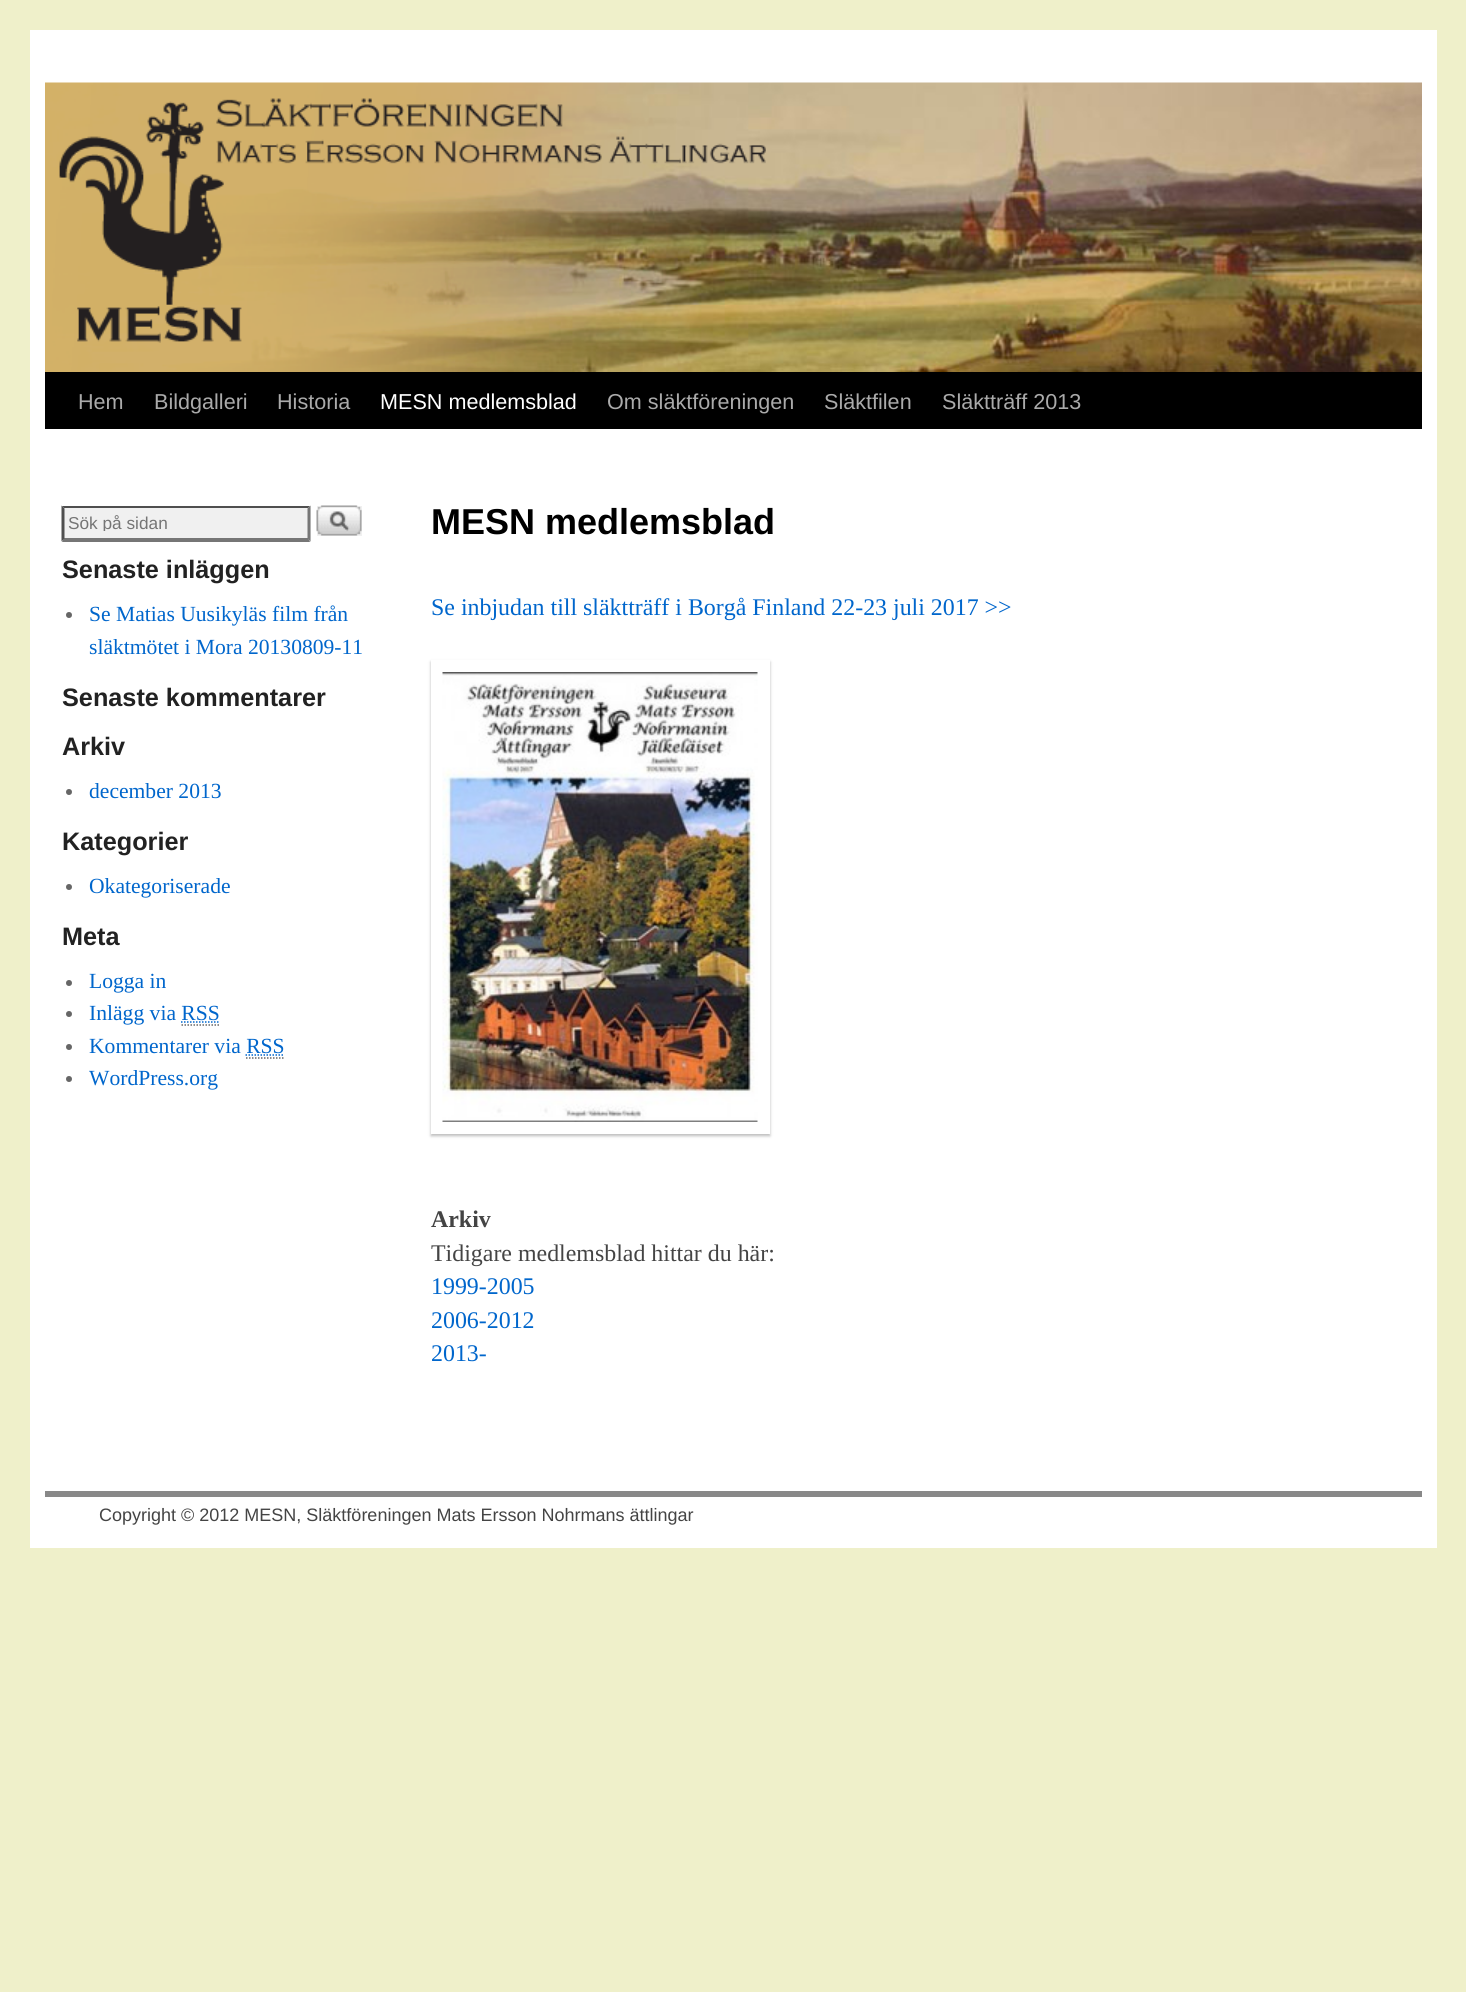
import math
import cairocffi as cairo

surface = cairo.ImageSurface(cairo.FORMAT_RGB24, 1466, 1992)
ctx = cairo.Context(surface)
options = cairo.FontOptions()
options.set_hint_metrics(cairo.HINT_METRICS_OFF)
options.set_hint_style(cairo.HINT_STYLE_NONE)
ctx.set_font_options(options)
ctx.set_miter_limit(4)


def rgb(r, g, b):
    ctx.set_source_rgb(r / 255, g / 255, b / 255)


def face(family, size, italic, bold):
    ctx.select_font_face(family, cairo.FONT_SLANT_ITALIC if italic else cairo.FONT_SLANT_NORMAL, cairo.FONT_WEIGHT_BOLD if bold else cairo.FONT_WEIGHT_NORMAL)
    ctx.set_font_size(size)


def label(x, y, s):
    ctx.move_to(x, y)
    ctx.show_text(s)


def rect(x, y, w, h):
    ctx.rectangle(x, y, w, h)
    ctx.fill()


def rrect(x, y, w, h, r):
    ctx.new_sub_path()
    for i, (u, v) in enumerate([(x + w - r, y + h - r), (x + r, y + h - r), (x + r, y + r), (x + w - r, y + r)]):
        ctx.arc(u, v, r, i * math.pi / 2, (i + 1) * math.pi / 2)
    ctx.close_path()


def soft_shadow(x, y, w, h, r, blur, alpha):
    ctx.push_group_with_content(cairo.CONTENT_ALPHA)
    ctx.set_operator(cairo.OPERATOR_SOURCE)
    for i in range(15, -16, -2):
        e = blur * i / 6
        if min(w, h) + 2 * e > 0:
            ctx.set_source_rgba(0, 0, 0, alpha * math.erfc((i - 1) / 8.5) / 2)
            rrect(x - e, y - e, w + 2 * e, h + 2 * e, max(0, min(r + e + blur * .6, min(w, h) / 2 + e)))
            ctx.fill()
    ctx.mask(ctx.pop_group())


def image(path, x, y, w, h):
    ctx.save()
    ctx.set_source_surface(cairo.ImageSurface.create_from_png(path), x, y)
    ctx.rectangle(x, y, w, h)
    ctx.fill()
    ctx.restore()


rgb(239, 240, 202)
ctx.paint()
rgb(255, 255, 255)
rect(30, 30, 1407, 1518)
image('image0.png', 45, 82, 1377, 290)
rgb(0, 0, 0)
rect(45, 372, 1377, 57)
face('Liberation Sans', 21.6, 0, 0)
rgb(170, 170, 170)
label(78, 409, 'Hem')
label(154, 409, 'Bildgalleri')
label(277, 409, 'Historia')
rgb(255, 255, 255)
label(380, 409, 'MESN medlemsblad')
rgb(170, 170, 170)
label(607, 409, 'Om släktföreningen')
label(824, 409, 'Släktfilen')
label(942, 409, 'Släktträff 2013')
rgb(240, 240, 240)
rect(62, 506, 249, 36)
rgb(79, 79, 79)
ctx.new_path()
ctx.move_to(62, 506)
ctx.line_to(310, 506)
ctx.line_to(308, 508)
ctx.line_to(64, 508)
ctx.close_path()
ctx.fill()
rgb(118, 118, 118)
ctx.new_path()
ctx.move_to(310.5, 505.5)
ctx.line_to(310.5, 541.5)
ctx.line_to(307.5, 538.5)
ctx.line_to(307.5, 508.5)
ctx.close_path()
ctx.fill()
ctx.new_path()
ctx.move_to(310, 542)
ctx.line_to(62, 542)
ctx.line_to(64, 538)
ctx.line_to(308, 538)
ctx.close_path()
ctx.fill()
rgb(79, 79, 79)
ctx.new_path()
ctx.move_to(61.5, 541.5)
ctx.line_to(61.5, 505.5)
ctx.line_to(64.5, 508.5)
ctx.line_to(64.5, 538.5)
ctx.close_path()
ctx.fill()
ctx.save()
ctx.rectangle(68, 513, 219, 18)
ctx.clip()
face('Liberation Sans', 17.25, 0, 0)
rgb(117, 117, 117)
label(68, 529, 'Sök på sidan')
ctx.restore()
rgb(240, 240, 240)
rect(317, 506, 45, 30)
image('image1.png', 316, 505, 46, 31)
face('Liberation Sans', 25.25, 0, 1)
rgb(34, 34, 34)
label(62, 578, 'Senaste inläggen')
rgb(102, 102, 102)
ctx.new_path()
ctx.arc(69, 615, 3, 0, 2 * math.pi)
ctx.fill()
face('Liberation Serif', 21.6, 0, 0)
rgb(0, 102, 204)
label(89, 621, 'Se Matias Uusikyläs film från')
label(89, 654, 'släktmötet i Mora 20130809-11')
face('Liberation Sans', 25.25, 0, 1)
rgb(34, 34, 34)
label(62, 706, 'Senaste kommentarer')
label(62, 755, 'Arkiv')
rgb(102, 102, 102)
ctx.new_path()
ctx.arc(69, 792, 3, 0, 2 * math.pi)
ctx.fill()
face('Liberation Serif', 21.6, 0, 0)
rgb(0, 102, 204)
label(89, 798, 'december 2013')
face('Liberation Sans', 25.25, 0, 1)
rgb(34, 34, 34)
label(62, 850, 'Kategorier')
rgb(102, 102, 102)
ctx.new_path()
ctx.arc(69, 887, 3, 0, 2 * math.pi)
ctx.fill()
face('Liberation Serif', 21.6, 0, 0)
rgb(0, 102, 204)
label(89, 893, 'Okategoriserade')
face('Liberation Sans', 25.25, 0, 1)
rgb(34, 34, 34)
label(62, 945, 'Meta')
rgb(102, 102, 102)
ctx.new_path()
ctx.arc(69, 983, 3, 0, 2 * math.pi)
ctx.fill()
face('Liberation Serif', 21.6, 0, 0)
rgb(0, 102, 204)
label(89, 988, 'Logga in')
rgb(102, 102, 102)
ctx.new_path()
ctx.arc(69, 1014, 3, 0, 2 * math.pi)
ctx.fill()
rgb(0, 102, 204)
label(89, 1020, 'Inlägg via RSS')
ctx.new_path()
ctx.move_to(181.5, 1025)
ctx.line_to(219, 1025)
rgb(102, 102, 102)
ctx.set_line_width(1.5)
ctx.set_dash([1.5, 1.5])
ctx.stroke()
ctx.new_path()
ctx.move_to(181, 1022)
ctx.line_to(219, 1022)
rgb(0, 102, 204)
ctx.stroke()
rgb(102, 102, 102)
ctx.arc(69, 1047, 3, 0, 2 * math.pi)
ctx.fill()
rgb(0, 102, 204)
label(89, 1053, 'Kommentarer via RSS')
ctx.new_path()
ctx.move_to(246, 1058)
ctx.line_to(283.5, 1058)
rgb(102, 102, 102)
ctx.stroke()
ctx.new_path()
ctx.move_to(245.5, 1055)
ctx.line_to(284, 1055)
rgb(0, 102, 204)
ctx.stroke()
rgb(102, 102, 102)
ctx.arc(69, 1079, 3, 0, 2 * math.pi)
ctx.fill()
rgb(0, 102, 204)
label(89, 1085, 'WordPress.org')
face('Liberation Sans', 36, 0, 1)
rgb(0, 0, 0)
label(431, 534, 'MESN medlemsblad')
face('Liberation Serif', 23.9, 0, 0)
rgb(0, 102, 204)
label(431, 615, 'Se inbjudan till släktträff i Borgå Finland 22-23 juli 2017 >>')
ctx.save()
ctx.set_fill_rule(cairo.FILL_RULE_EVEN_ODD)
ctx.new_path()
ctx.move_to(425, 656)
ctx.line_to(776, 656)
ctx.line_to(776, 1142)
ctx.line_to(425, 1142)
ctx.close_path()
ctx.move_to(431, 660)
ctx.line_to(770, 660)
ctx.line_to(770, 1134)
ctx.line_to(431, 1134)
ctx.close_path()
ctx.clip()
rgb(187, 187, 187)
soft_shadow(431, 662, 339, 474, 0, 1.5, 1)
ctx.restore()
image('image2.png', 442, 672, 316, 450)
face('Liberation Serif', 23.9, 0, 1)
rgb(68, 68, 68)
label(431, 1227, 'Arkiv')
face('Liberation Serif', 23.9, 0, 0)
label(431, 1261, 'Tidigare medlemsblad hittar du här:')
rgb(0, 102, 204)
label(431, 1294, '1999-2005')
label(431, 1328, '2006-2012')
label(431, 1361, '2013-')
rgb(136, 136, 136)
rect(45, 1491, 1377, 6)
face('Liberation Sans', 18, 0, 0)
rgb(68, 68, 68)
label(99, 1521, 'Copyright © 2012 MESN, Släktföreningen Mats Ersson Nohrmans ättlingar')
surface.write_to_png('render.png')
